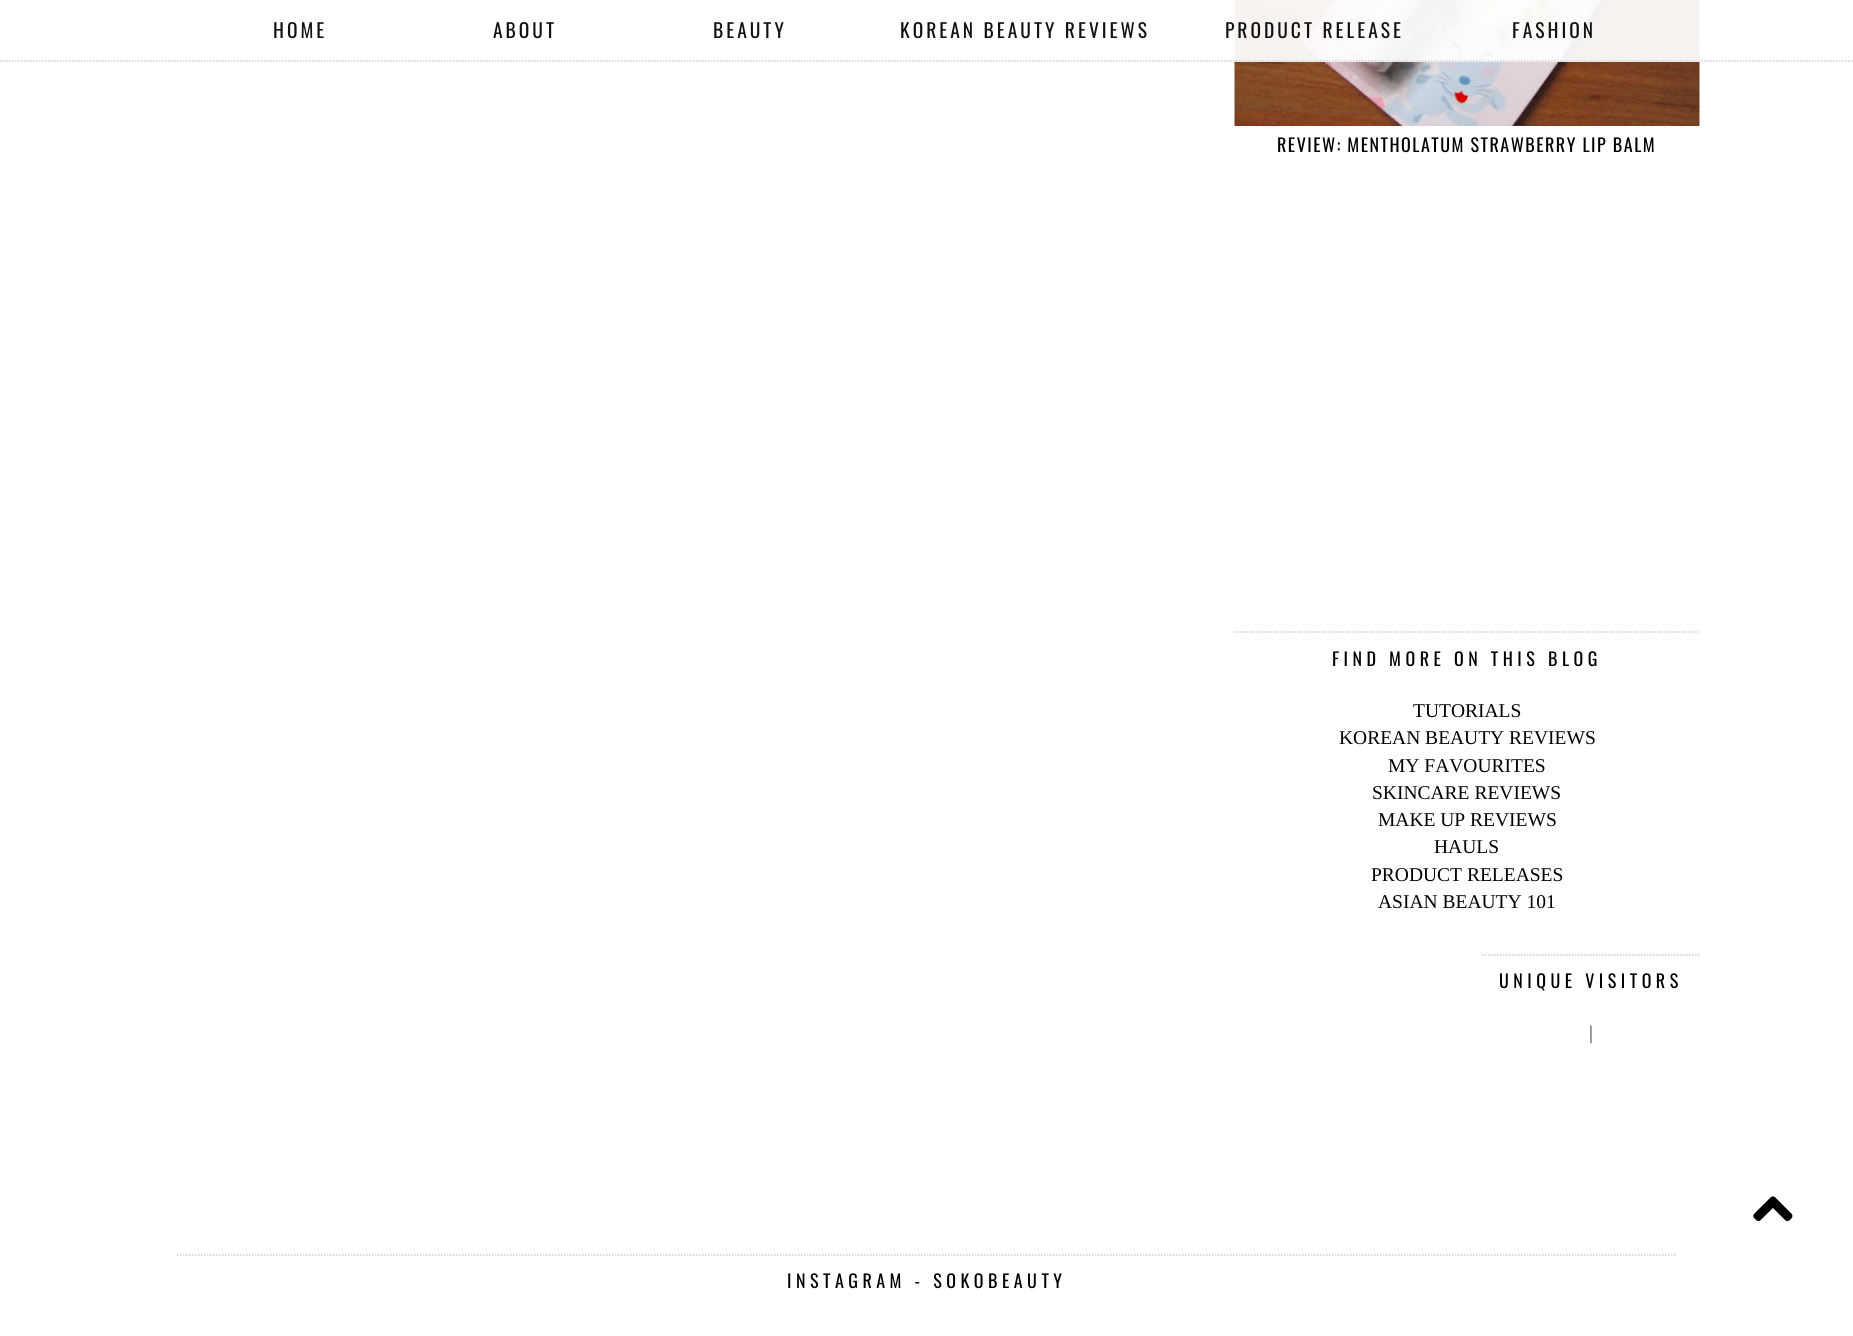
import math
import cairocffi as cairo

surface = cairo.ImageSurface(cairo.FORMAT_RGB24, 1853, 1336)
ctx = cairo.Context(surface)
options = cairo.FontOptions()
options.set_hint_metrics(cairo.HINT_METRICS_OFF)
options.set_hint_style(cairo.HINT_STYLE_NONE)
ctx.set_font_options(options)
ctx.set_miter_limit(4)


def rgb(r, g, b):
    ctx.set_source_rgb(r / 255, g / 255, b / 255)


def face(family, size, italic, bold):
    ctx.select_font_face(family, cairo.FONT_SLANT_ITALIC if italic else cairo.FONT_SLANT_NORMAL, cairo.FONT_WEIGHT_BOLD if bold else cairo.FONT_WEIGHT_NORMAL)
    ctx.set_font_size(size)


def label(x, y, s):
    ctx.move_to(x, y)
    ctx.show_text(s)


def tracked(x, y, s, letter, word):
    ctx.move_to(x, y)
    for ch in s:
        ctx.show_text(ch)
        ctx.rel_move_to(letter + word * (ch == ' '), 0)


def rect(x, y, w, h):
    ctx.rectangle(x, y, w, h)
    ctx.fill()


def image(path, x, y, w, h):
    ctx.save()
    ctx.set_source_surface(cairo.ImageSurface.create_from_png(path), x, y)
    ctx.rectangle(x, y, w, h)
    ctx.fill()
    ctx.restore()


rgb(255, 255, 255)
ctx.paint()
image('image0.png', 1234, 0, 466, 126)
ctx.set_source_rgba(1, 1, 1, 0.93)
rect(1234, 0, 466, 62)
ctx.new_path()
ctx.move_to(0, 61)
ctx.line_to(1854, 61)
ctx.set_source_rgba(0.8, 0.8, 0.8, 0.93)
ctx.set_line_width(1.5)
ctx.set_dash([1.5, 1.5])
ctx.stroke()
face('Oswald', 19.5, 0, 0)
rgb(18, 18, 18)
tracked(273, 38, 'HOME', 3, 0)
tracked(493, 38, 'ABOUT', 3, 0)
tracked(713, 38, 'BEAUTY', 3, 0)
tracked(900, 38, 'KOREAN BEAUTY REVIEWS', 3, 0)
tracked(1225, 38, 'PRODUCT RELEASE', 3, 0)
tracked(1512, 38, 'FASHION', 3, 0)
face('Oswald', 18, 0, 0)
rgb(0, 0, 0)
tracked(1277, 152, 'REVIEW: MENTHOLATUM STRAWBERRY LIP BALM', 1.5, 0)
ctx.new_path()
ctx.move_to(1234.5, 632)
ctx.line_to(1699.5, 632)
rgb(204, 204, 204)
ctx.stroke()
rgb(0, 0, 0)
tracked(1332, 666, 'FIND MORE ON THIS BLOG', 4.5, 0)
face('Liberation Serif', 19.5, 0, 0)
label(1413, 717, 'TUTORIALS')
label(1339, 744, 'KOREAN BEAUTY REVIEWS')
label(1388, 772, 'MY FAVOURITES')
label(1372, 799, 'SKINCARE REVIEWS')
label(1378, 826, 'MAKE UP REVIEWS')
label(1434, 853, 'HAULS')
label(1371, 881, 'PRODUCT RELEASES')
label(1378, 908, 'ASIAN BEAUTY 101')
ctx.new_path()
ctx.move_to(1482, 955)
ctx.line_to(1699.5, 955)
rgb(204, 204, 204)
ctx.stroke()
face('Oswald', 18, 0, 0)
rgb(0, 0, 0)
tracked(1499, 988, 'UNIQUE VISITORS', 4.5, 0)
face('Liberation Serif', 19.5, 0, 0)
rgb(51, 51, 51)
label(1589, 1039, '|')
ctx.new_path()
ctx.move_to(177, 1255)
ctx.line_to(1677, 1255)
rgb(204, 204, 204)
ctx.stroke()
face('Oswald', 18, 0, 0)
rgb(0, 0, 0)
tracked(787, 1288, 'INSTAGRAM - SOKOBEAUTY', 4.5, 0)
image('image1.png', 1753, 1196, 40, 25)
surface.write_to_png('render.png')
